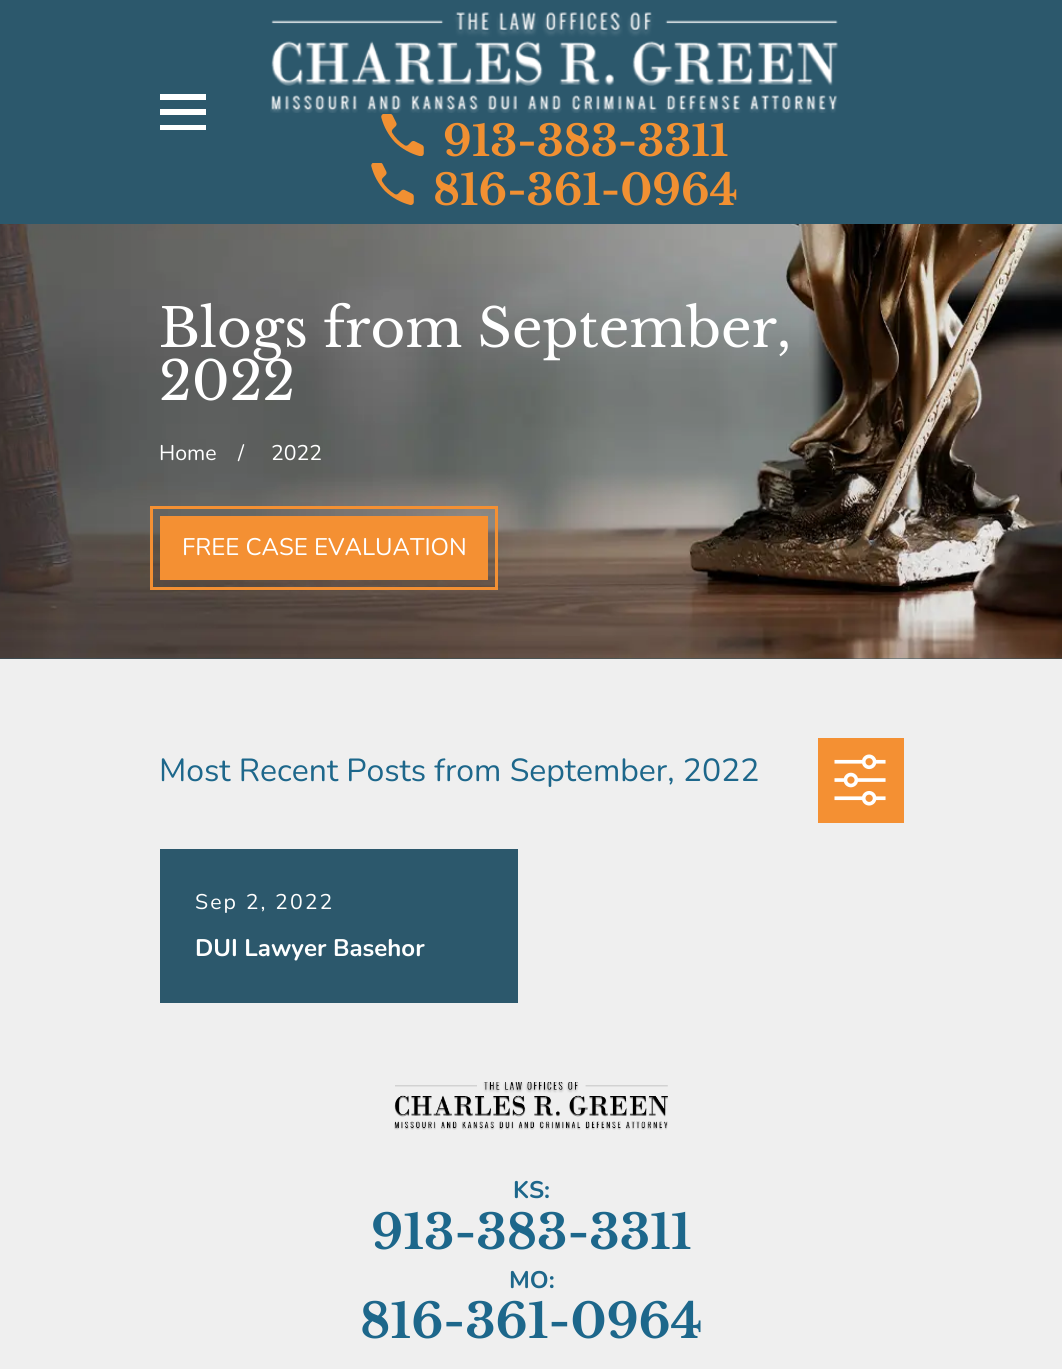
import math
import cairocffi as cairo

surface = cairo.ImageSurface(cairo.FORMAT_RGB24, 1062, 1369)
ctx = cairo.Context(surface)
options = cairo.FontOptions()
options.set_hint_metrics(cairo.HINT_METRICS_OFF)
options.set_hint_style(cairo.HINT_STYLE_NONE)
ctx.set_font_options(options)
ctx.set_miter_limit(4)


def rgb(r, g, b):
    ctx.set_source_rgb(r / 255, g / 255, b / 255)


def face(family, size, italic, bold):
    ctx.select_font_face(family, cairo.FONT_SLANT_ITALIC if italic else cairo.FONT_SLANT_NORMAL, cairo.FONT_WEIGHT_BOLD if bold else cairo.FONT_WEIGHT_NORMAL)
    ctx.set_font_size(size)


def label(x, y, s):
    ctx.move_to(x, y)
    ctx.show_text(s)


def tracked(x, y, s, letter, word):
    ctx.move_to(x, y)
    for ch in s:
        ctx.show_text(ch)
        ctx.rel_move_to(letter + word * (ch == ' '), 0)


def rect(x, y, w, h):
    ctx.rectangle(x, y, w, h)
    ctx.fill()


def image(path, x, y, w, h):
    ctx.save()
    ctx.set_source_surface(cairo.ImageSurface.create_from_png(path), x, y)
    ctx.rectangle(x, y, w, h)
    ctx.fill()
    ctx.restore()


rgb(239, 239, 239)
ctx.paint()
rgb(44, 88, 108)
rect(0, 0, 1062, 224)
ctx.save()
ctx.rectangle(160, 89, 46, 46)
ctx.clip()
rgb(255, 255, 255)
ctx.new_path()
ctx.move_to(160, 94)
ctx.line_to(160, 100)
ctx.line_to(207, 100)
ctx.line_to(207, 94)
ctx.close_path()
ctx.move_to(160, 109)
ctx.line_to(160, 115)
ctx.line_to(207, 115)
ctx.line_to(207, 109)
ctx.close_path()
ctx.move_to(160, 125)
ctx.line_to(160, 130)
ctx.line_to(207, 130)
ctx.line_to(207, 125)
ctx.close_path()
ctx.fill()
ctx.restore()
image('image0.png', 270, 12, 569, 101)
image('image1.png', 381, 114, 43, 42)
face('Libre Baskerville', 42.5, 0, 1)
rgb(241, 144, 50)
label(443, 156, '913-383-3311')
image('image2.png', 371, 163, 43, 42)
label(433, 205, '816-361-0964')
rgb(44, 88, 108)
rect(0, 658, 1062, 1)
image('image3.png', 0, 224, 1062, 435)
face('Libre Baskerville', 53.2, 0, 0)
rgb(255, 255, 255)
label(159, 347, 'Blogs from September,')
label(159, 400, '2022')
face('Nunito', 21.25, 0, 0)
label(159, 460, 'Home')
label(238, 460, '/')
label(271, 460, '2022')
rgb(244, 144, 51)
rect(160, 516, 328, 64)
ctx.rectangle(151.5, 507.5, 345, 81)
ctx.set_line_width(3)
ctx.stroke()
face('Nunito', 24, 0, 0)
rgb(255, 255, 255)
label(182, 555, 'FREE CASE EVALUATION')
face('Nunito', 31.9, 0, 0)
rgb(29, 103, 139)
label(159, 781, 'Most Recent Posts from September, 2022')
rgb(244, 144, 51)
rect(818, 738, 86, 85)
image('image4.png', 834, 754, 52, 52)
rgb(44, 88, 108)
rect(160, 849, 358, 154)
face('Nunito', 21.25, 0, 0)
rgb(255, 255, 255)
tracked(195, 909, 'Sep 2, 2022', 2.1, 0)
face('Nunito', 24, 0, 1)
label(195, 956, 'DUI Lawyer Basehor')
image('image5.png', 394, 1082, 274, 48)
rgb(29, 103, 139)
label(513, 1198, 'KS:')
face('Libre Baskerville', 47.75, 0, 1)
label(371, 1249, '913-383-3311')
face('Nunito', 24, 0, 1)
label(509, 1288, 'MO:')
face('Libre Baskerville', 47.75, 0, 1)
label(360, 1338, '816-361-0964')
surface.write_to_png('render.png')
